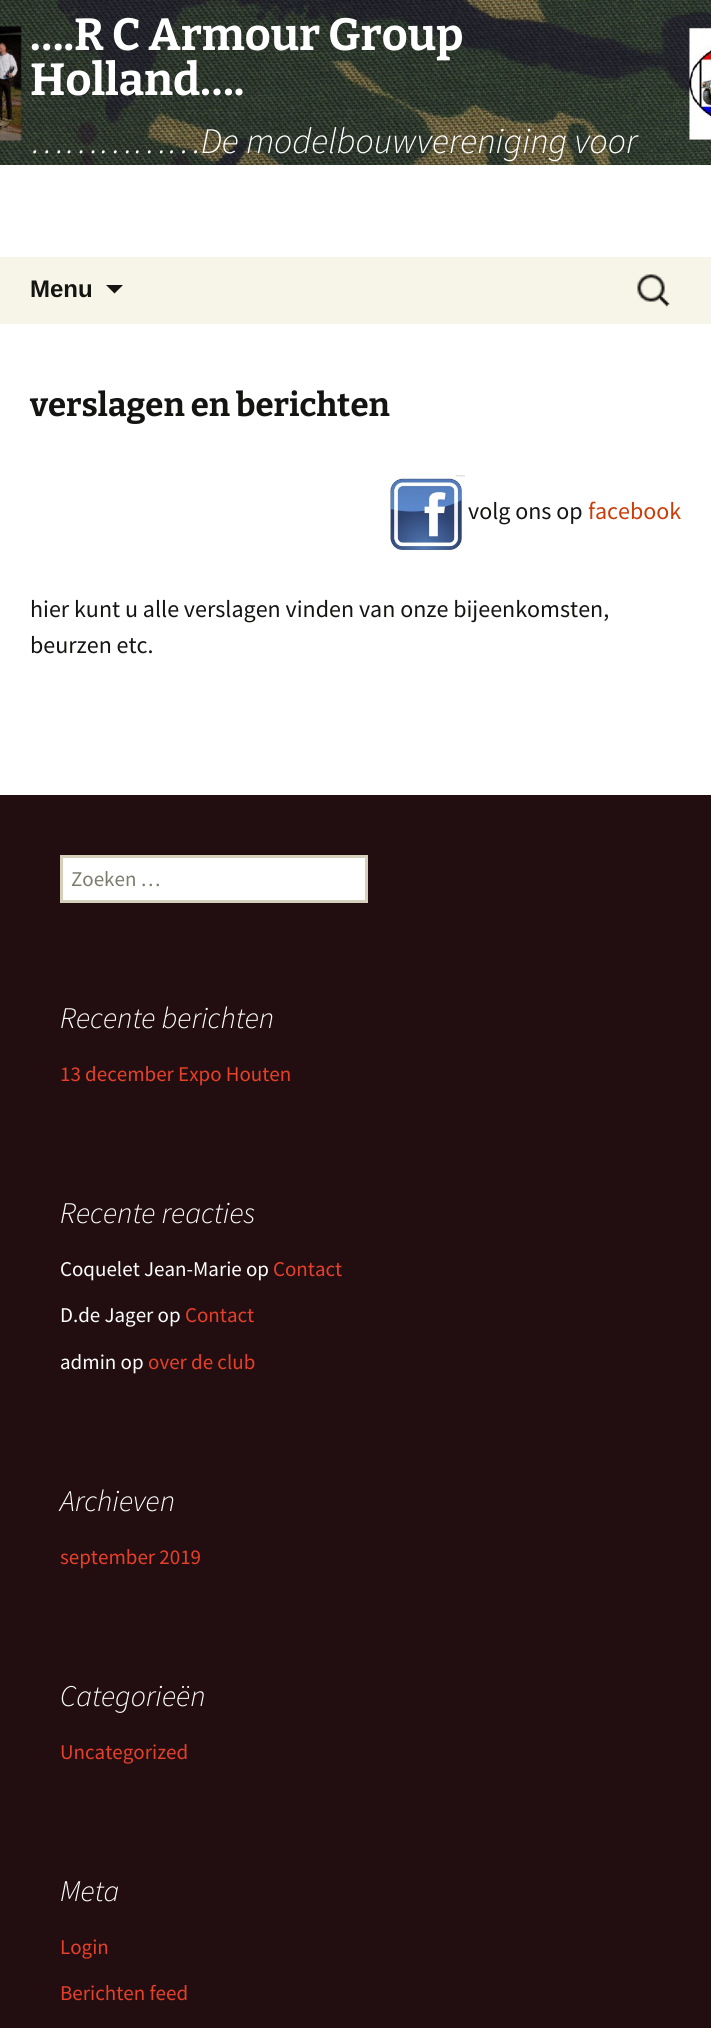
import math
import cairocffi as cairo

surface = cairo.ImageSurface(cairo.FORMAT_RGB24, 711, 2028)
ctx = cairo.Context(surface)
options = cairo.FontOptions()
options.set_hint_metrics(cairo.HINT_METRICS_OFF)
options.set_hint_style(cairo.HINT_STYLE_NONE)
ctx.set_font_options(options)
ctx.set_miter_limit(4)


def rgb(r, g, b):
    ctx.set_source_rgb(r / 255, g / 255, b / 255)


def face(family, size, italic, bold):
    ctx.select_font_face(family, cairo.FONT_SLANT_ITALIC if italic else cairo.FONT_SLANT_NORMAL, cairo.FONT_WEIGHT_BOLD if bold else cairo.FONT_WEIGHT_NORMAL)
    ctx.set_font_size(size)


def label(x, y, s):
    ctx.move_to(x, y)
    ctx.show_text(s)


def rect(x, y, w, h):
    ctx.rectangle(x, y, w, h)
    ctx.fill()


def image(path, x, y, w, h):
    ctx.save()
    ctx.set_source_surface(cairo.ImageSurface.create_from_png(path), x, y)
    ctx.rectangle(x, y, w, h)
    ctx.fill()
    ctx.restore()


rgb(255, 255, 255)
ctx.paint()
image('image0.png', 0, 0, 711, 165)
face('Bitter Thin', 45, 0, 0)
rgb(255, 255, 255)
label(30, 50, '….R C Armour Group')
label(30, 95, 'Holland….')
face('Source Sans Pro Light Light', 36, 1, 0)
label(30, 153, '……………De modelbouwvereniging voor')
rgb(247, 245, 231)
rect(0, 257, 711, 67)
face('Liberation Sans', 24, 0, 1)
rgb(20, 20, 18)
label(30, 297, 'Menu')
ctx.new_path()
ctx.move_to(106, 285)
ctx.line_to(114.5, 293.5)
ctx.line_to(123, 285)
ctx.close_path()
ctx.fill()
image('image1.png', 637, 274, 33, 33)
face('Bitter Thin', 33, 0, 0)
label(30, 416, 'verslagen en berichten')
image('image2.png', 390, 475, 75, 77)
face('Source Sans Pro', 24, 0, 0)
label(468, 519, 'volg ons op')
rgb(202, 60, 8)
label(588, 519, 'facebook')
rgb(20, 20, 18)
label(30, 617, 'hier kunt u alle verslagen vinden van onze bijeenkomsten,')
label(30, 653, 'beurzen etc.')
rgb(34, 14, 16)
rect(0, 795, 711, 1233)
rgb(255, 255, 255)
ctx.rectangle(61.5, 856.5, 305, 45)
ctx.fill_preserve()
rgb(212, 208, 186)
ctx.set_line_width(3)
ctx.stroke()
face('Source Sans Pro', 21, 0, 0)
rgb(125, 123, 109)
label(71, 886, 'Zoeken …')
face('Source Sans Pro Light Light', 30, 1, 0)
rgb(255, 255, 255)
label(60, 1028, 'Recente berichten')
face('Source Sans Pro', 21, 0, 0)
rgb(230, 64, 42)
label(60, 1081, '13 december Expo Houten')
face('Source Sans Pro Light Light', 30, 1, 0)
rgb(255, 255, 255)
label(60, 1223, 'Recente reacties')
face('Source Sans Pro', 21, 0, 0)
label(60, 1276, 'Coquelet Jean-Marie op')
rgb(230, 64, 42)
label(273, 1276, 'Contact')
rgb(255, 255, 255)
label(60, 1322, 'D.de Jager op')
rgb(230, 64, 42)
label(185, 1322, 'Contact')
rgb(255, 255, 255)
label(60, 1369, 'admin op')
rgb(230, 64, 42)
label(148, 1369, 'over de club')
face('Source Sans Pro Light Light', 30, 1, 0)
rgb(255, 255, 255)
label(60, 1511, 'Archieven')
face('Source Sans Pro', 21, 0, 0)
rgb(230, 64, 42)
label(60, 1564, 'september 2019')
face('Source Sans Pro Light Light', 30, 1, 0)
rgb(255, 255, 255)
label(60, 1706, 'Categorieën')
face('Source Sans Pro', 21, 0, 0)
rgb(230, 64, 42)
label(60, 1759, 'Uncategorized')
face('Source Sans Pro Light Light', 30, 1, 0)
rgb(255, 255, 255)
label(60, 1901, 'Meta')
face('Source Sans Pro', 21, 0, 0)
rgb(230, 64, 42)
label(60, 1954, 'Login')
label(60, 2000, 'Berichten feed')
surface.write_to_png('render.png')
